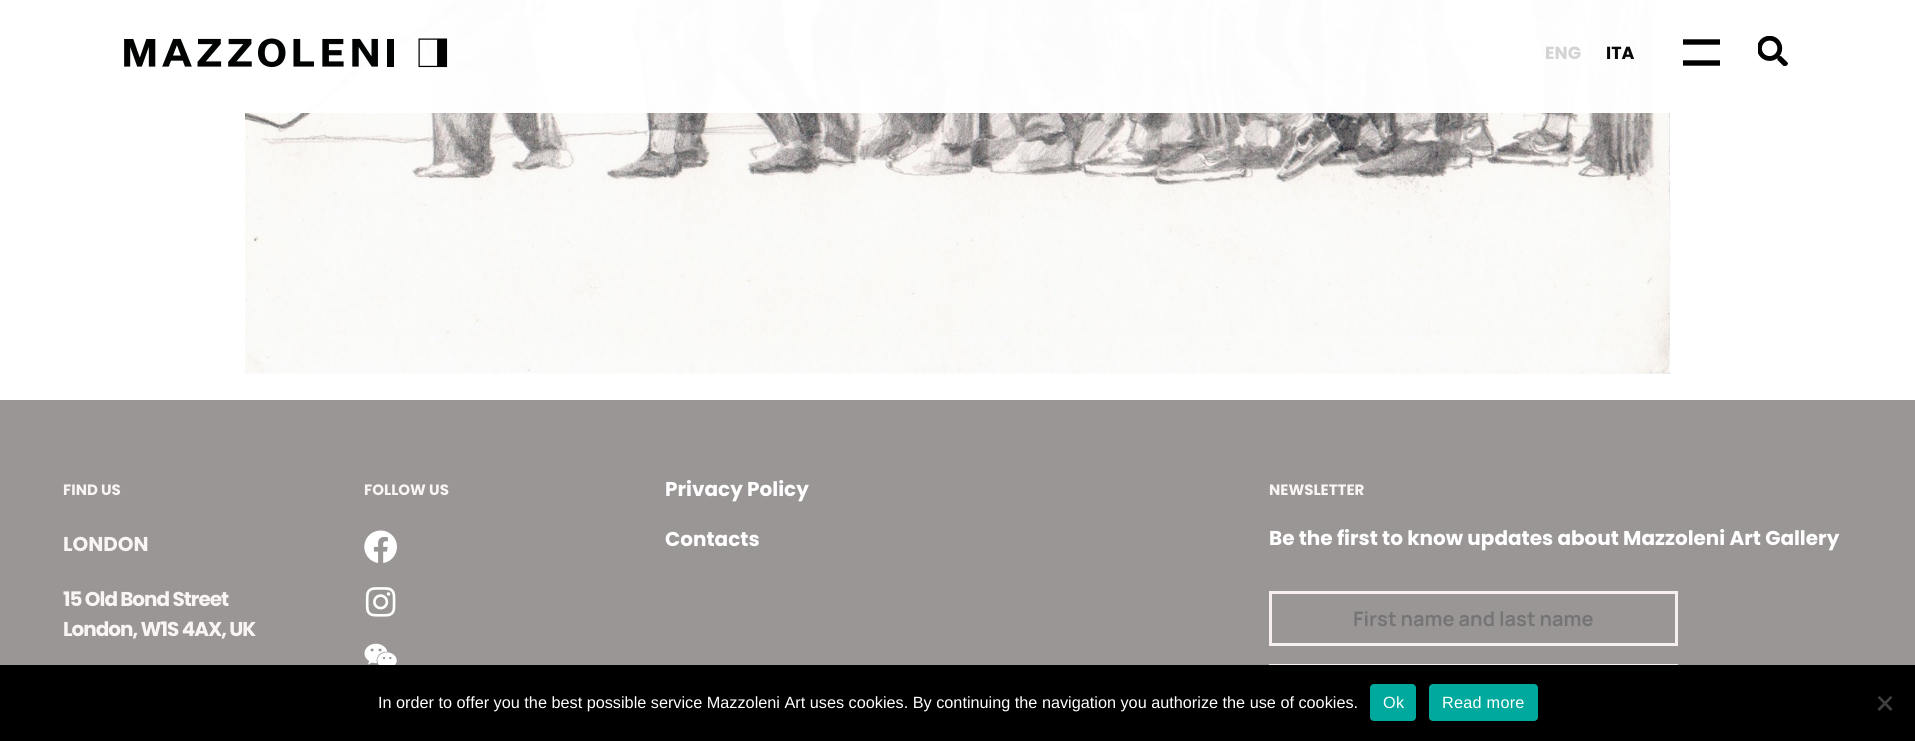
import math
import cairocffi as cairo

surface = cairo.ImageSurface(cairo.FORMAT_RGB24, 1915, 741)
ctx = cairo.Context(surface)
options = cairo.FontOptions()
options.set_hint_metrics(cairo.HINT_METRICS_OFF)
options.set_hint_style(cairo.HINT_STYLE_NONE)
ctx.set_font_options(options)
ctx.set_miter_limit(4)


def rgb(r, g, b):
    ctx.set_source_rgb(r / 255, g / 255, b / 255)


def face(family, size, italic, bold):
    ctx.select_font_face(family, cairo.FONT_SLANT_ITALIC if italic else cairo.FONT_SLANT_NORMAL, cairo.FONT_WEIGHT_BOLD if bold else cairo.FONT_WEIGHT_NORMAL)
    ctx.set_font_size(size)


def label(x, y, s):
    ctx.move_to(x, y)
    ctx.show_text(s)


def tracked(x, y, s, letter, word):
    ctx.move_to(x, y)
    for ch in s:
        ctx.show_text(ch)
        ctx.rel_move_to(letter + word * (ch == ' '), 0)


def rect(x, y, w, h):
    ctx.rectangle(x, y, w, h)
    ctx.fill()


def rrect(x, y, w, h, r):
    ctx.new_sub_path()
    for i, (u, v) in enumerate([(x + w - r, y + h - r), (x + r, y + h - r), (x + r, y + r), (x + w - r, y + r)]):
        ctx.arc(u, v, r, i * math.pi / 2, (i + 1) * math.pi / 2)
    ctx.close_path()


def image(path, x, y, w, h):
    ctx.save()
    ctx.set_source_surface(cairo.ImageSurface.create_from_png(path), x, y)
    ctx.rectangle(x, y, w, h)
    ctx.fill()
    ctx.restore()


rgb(255, 255, 255)
ctx.paint()
image('image0.png', 245, 0, 1425, 374)
ctx.set_source_rgba(1, 1, 1, 0.98)
rect(245, 0, 1425, 113)
image('image1.png', 1758, 36, 30, 30)
image('image2.png', 124, 38, 324, 30)
face('Poppins', 17.5, 0, 1)
rgb(211, 211, 211)
label(1545, 59, 'ENG')
rgb(10, 9, 9)
label(1606, 59, 'ITA')
ctx.save()
ctx.rectangle(1683, 34, 37, 37)
ctx.clip()
ctx.new_path()
ctx.move_to(1682.5, 42)
ctx.line_to(1721, 42)
ctx.move_to(1682.5, 63)
ctx.line_to(1721, 63)
rgb(0, 0, 0)
ctx.set_line_width(5.4)
ctx.stroke()
ctx.restore()
rgb(154, 150, 150)
rect(0, 400, 1915, 265)
face('Poppins', 15, 0, 1)
rgb(250, 245, 245)
label(63, 495, 'FIND US')
face('Poppins', 20, 0, 1)
label(63, 551, 'LONDON')
tracked(63, 606, '15 Old Bond Street', -1, 0)
tracked(63, 636, 'London, W1S 4AX, UK', -1, 0)
face('Poppins', 15, 0, 1)
label(364, 495, 'FOLLOW US')
image('image3.png', 364, 530, 33, 33)
image('image4.png', 365, 587, 31, 30)
image('image5.png', 364, 643, 33, 22)
face('Poppins', 20, 0, 1)
rgb(255, 255, 255)
label(665, 496, 'Privacy Policy')
label(665, 546, 'Contacts')
face('Poppins', 15, 0, 1)
rgb(250, 245, 245)
label(1269, 495, 'NEWSLETTER')
face('Poppins', 20, 0, 1)
rgb(255, 255, 255)
label(1269, 545, 'Be the first to know updates about Mazzoleni Art Gallery')
ctx.rectangle(1270.5, 592.5, 406, 52)
rgb(248, 240, 240)
ctx.set_line_width(3)
ctx.stroke()
face('Manrope', 20, 0, 1)
rgb(117, 117, 117)
label(1353, 626, 'First name and last name')
ctx.rectangle(1270.5, 665.5, 406, 52)
rgb(248, 240, 240)
ctx.stroke()
rgb(0, 0, 0)
rect(0, 665, 1915, 76)
face('Liberation Sans', 16.25, 0, 0)
rgb(255, 255, 255)
label(378, 708, 'In order to offer you the best possible service Mazzoleni Art uses cookies. By continuing the navigation you authorize the use of cookies.')
rgb(0, 169, 157)
rrect(1370, 684, 46, 37, 4)
ctx.fill()
rgb(255, 255, 255)
tracked(1383, 708, 'Ok', 0.25, 0)
rgb(0, 169, 157)
rrect(1429, 684, 109, 37, 4)
ctx.fill()
rgb(255, 255, 255)
tracked(1442, 708, 'Read more', 0.25, 0)
rgb(64, 64, 64)
ctx.new_path()
ctx.move_to(1890.5, 696)
ctx.line_to(1892.5, 697.5)
ctx.line_to(1879.5, 711)
ctx.line_to(1877.5, 709)
ctx.close_path()
ctx.fill()
ctx.new_path()
ctx.move_to(1877.5, 697.5)
ctx.line_to(1879.5, 696)
ctx.line_to(1892.5, 709)
ctx.line_to(1890.5, 711)
ctx.close_path()
ctx.fill()
surface.write_to_png('render.png')
